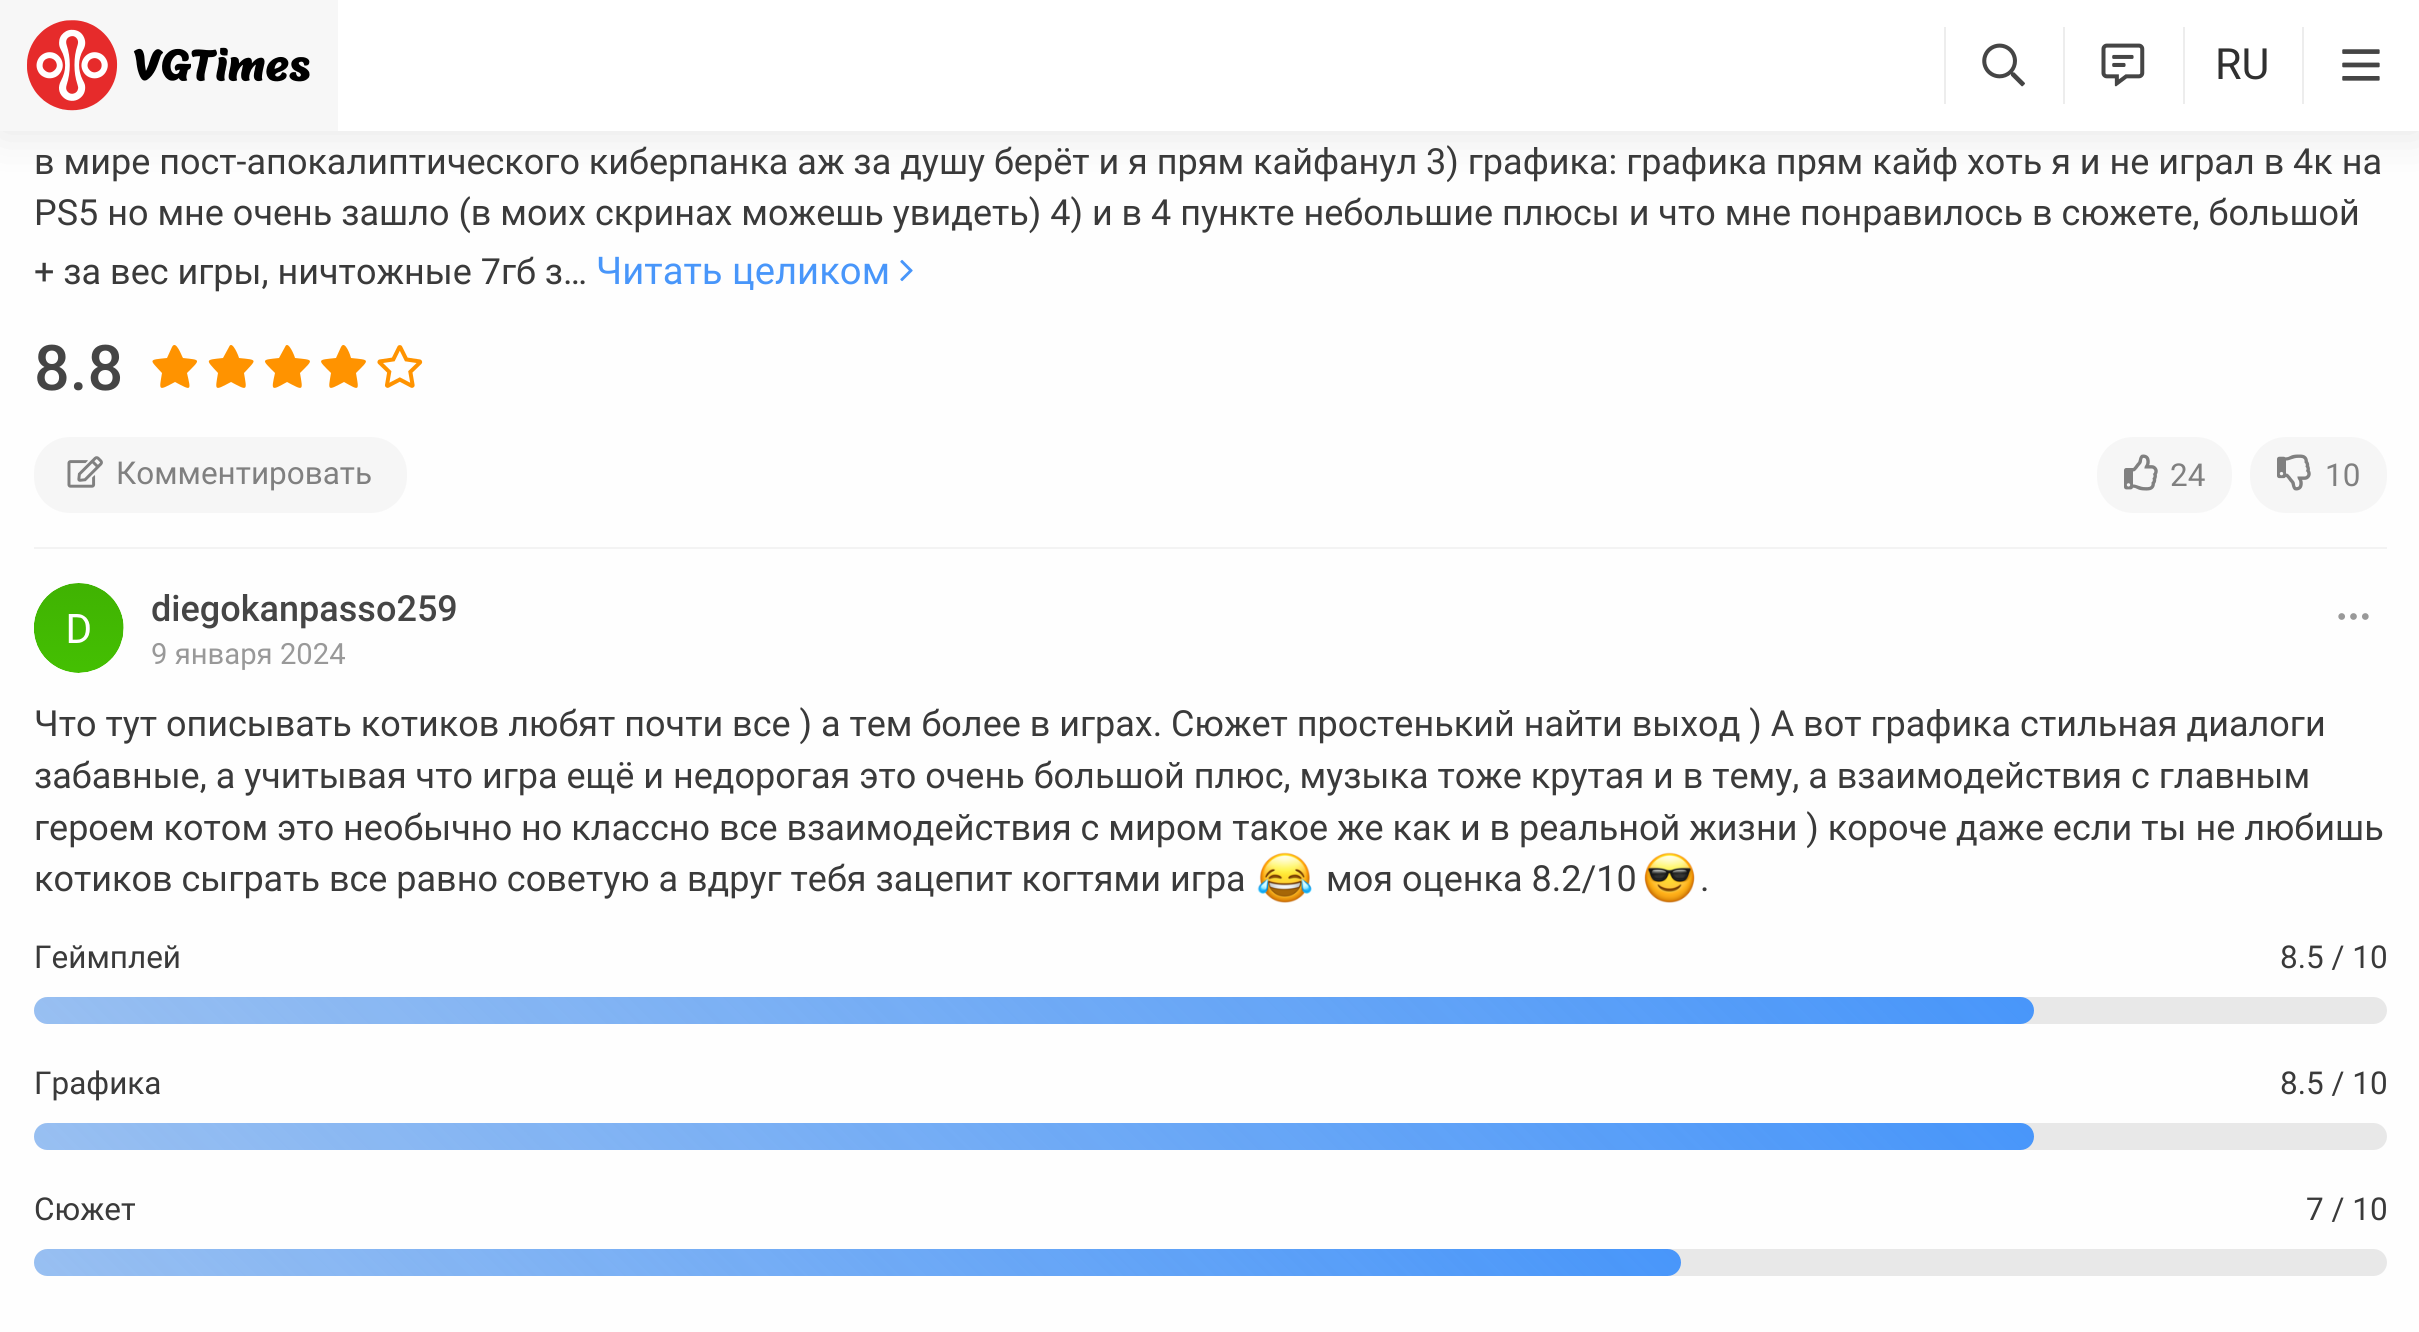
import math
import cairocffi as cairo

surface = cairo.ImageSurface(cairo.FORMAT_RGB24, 2419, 1332)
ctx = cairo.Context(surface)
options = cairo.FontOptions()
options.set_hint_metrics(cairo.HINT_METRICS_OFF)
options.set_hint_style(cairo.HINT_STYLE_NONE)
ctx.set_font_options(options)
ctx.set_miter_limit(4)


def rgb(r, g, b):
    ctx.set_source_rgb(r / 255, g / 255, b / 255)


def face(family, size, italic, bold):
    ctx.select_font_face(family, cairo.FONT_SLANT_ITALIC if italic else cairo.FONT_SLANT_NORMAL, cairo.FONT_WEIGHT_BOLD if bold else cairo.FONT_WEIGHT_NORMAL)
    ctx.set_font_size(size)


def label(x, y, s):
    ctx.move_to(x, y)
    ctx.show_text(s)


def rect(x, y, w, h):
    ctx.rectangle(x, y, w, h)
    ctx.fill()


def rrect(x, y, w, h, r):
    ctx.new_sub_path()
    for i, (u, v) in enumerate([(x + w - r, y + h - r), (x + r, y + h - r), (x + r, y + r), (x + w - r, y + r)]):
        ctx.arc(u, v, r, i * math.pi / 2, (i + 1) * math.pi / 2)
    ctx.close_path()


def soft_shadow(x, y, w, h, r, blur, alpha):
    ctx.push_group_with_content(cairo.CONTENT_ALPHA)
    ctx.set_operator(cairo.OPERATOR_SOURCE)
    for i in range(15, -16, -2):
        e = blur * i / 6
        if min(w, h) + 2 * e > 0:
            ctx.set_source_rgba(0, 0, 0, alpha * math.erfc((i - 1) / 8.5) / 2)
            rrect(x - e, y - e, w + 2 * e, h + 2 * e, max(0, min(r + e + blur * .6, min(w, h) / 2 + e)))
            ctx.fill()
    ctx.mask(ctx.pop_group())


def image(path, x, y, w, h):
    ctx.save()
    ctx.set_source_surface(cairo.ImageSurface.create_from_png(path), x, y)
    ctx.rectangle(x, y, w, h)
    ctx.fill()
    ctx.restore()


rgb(254, 254, 254)
ctx.paint()
rgb(41, 41, 41)
soft_shadow(0, 0, 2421, 131, 0, 22.5, 0.13)
rgb(255, 255, 255)
rect(338, 0, 2081, 131)
rgb(247, 247, 247)
rect(0, 0, 338, 131)
image('image1.png', 36, 30, 72, 71)
image('image0.png', 27, 20, 91, 91)
image('image2.png', 133, 47, 177, 35)
rgb(237, 237, 237)
rect(1944, 27, 2, 77)
image('image3.png', 1982, 43, 43, 44)
rect(2063, 27, 2, 77)
image('image4.png', 2101, 43, 44, 44)
rect(2183, 27, 2, 77)
face('Roboto', 43, 0, 0)
rgb(48, 48, 48)
label(2215, 79, 'RU')
rgb(237, 237, 237)
rect(2302, 27, 2, 77)
image('image5.png', 2342, 49, 38, 32)
face('Roboto', 36, 0, 0)
rgb(58, 58, 58)
label(34, 174, 'в мире пост-апокалиптического киберпанка аж за душу берёт и я прям кайфанул 3) графика: графика прям кайф хоть я и не играл в 4к на')
label(34, 225, 'PS5 но мне очень зашло (в моих скринах можешь увидеть) 4) и в 4 пункте небольшие плюсы и что мне понравилось в сюжете, большой')
label(34, 284, '+ за вес игры, ничтожные 7гб з…')
face('Roboto', 38.25, 0, 0)
rgb(72, 150, 250)
label(596, 284, 'Читать целиком')
image('image6.png', 900, 259, 13, 23)
face('Roboto Medium', 63, 0, 0)
rgb(69, 69, 69)
label(34, 390, '8.8')
rgb(255, 147, 0)
ctx.new_path()
ctx.move_to(172, 347)
ctx.curve_to(176, 339, 182, 357, 183, 358)
ctx.curve_to(201, 360, 201, 359, 187, 373)
ctx.curve_to(191, 391, 192, 391, 175, 382)
ctx.curve_to(158, 391, 159, 391, 162, 373)
ctx.curve_to(149, 359, 148, 360, 167, 358)
ctx.close_path()
ctx.fill()
ctx.new_path()
ctx.move_to(229, 347)
ctx.curve_to(232, 339, 239, 357, 239, 358)
ctx.curve_to(258, 360, 257, 359, 244, 373)
ctx.curve_to(247, 391, 248, 391, 231, 382)
ctx.curve_to(214, 391, 215, 391, 218, 373)
ctx.curve_to(205, 359, 205, 360, 223, 358)
ctx.close_path()
ctx.fill()
ctx.new_path()
ctx.move_to(285, 347)
ctx.curve_to(288, 339, 295, 357, 295, 358)
ctx.curve_to(314, 360, 314, 359, 300, 373)
ctx.curve_to(303, 391, 304, 391, 287, 382)
ctx.curve_to(271, 391, 271, 391, 275, 373)
ctx.curve_to(261, 359, 261, 360, 279, 358)
ctx.close_path()
ctx.fill()
ctx.new_path()
ctx.move_to(341, 347)
ctx.curve_to(345, 339, 351, 357, 351, 358)
ctx.curve_to(370, 360, 370, 359, 356, 373)
ctx.curve_to(359, 391, 360, 391, 344, 382)
ctx.curve_to(327, 391, 328, 391, 331, 373)
ctx.curve_to(317, 359, 317, 360, 336, 358)
ctx.close_path()
ctx.fill()
image('image7.png', 377, 345, 46, 43)
rgb(246, 246, 246)
rrect(34, 437, 373, 76, 36)
ctx.fill()
image('image8.png', 67, 456, 36, 32)
face('Roboto', 31.5, 0, 0)
rgb(128, 128, 128)
label(116, 484, 'Комментировать')
rgb(246, 246, 246)
rrect(2097, 437, 135, 76, 36)
ctx.fill()
image('image9.png', 2124, 454, 34, 37)
rgb(128, 128, 128)
label(2170, 486, '24')
rgb(246, 246, 246)
rrect(2250, 437, 137, 76, 36)
ctx.fill()
image('image10.png', 2277, 454, 34, 37)
rgb(128, 128, 128)
label(2325, 486, '10')
rgb(243, 243, 243)
rect(34, 547, 2353, 2)
image('image11.png', 34, 583, 90, 90)
face('Roboto Medium', 36, 0, 0)
rgb(69, 69, 69)
label(151, 621, 'diegokanpasso259')
face('Roboto', 29.25, 0, 0)
rgb(153, 153, 153)
label(151, 664, '9 января 2024')
image('image12.png', 2338, 613, 31, 7)
face('Roboto', 36, 0, 0)
rgb(58, 58, 58)
label(34, 736, 'Что тут описывать котиков любят почти все ) а тем более в играх. Сюжет простенький найти выход ) А вот графика стильная диалоги')
label(34, 788, 'забавные, а учитывая что игра ещё и недорогая это очень большой плюс, музыка тоже крутая и в тему, а взаимодействия с главным')
label(34, 840, 'героем котом это необычно но классно все взаимодействия с миром такое же как и в реальной жизни ) короче даже если ты не любишь')
label(34, 891, 'котиков сыграть все равно советую а вдруг тебя зацепит когтями игра')
image('image13.png', 1257, 852, 55, 51)
label(1326, 891, 'моя оценка 8.2/10')
image('image14.png', 1644, 852, 51, 51)
label(1700, 891, '.')
face('Roboto', 31.5, 0, 0)
label(34, 968, 'Геймплей')
label(2280, 968, '8.5 / 10')
rgb(232, 232, 232)
rrect(34, 997, 2353, 27, 13.5)
ctx.fill()
gradient = cairo.LinearGradient(527, 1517, 1541, 503)
gradient.add_color_stop_rgba(0, 0.282, 0.588, 0.98, 0.5)
gradient.add_color_stop_rgba(1, 0.282, 0.588, 0.98, 1)
ctx.set_source(gradient)
rrect(34, 997, 2000, 27, 13.5)
ctx.fill()
rgb(58, 58, 58)
label(34, 1094, 'Графика')
label(2280, 1094, '8.5 / 10')
rgb(232, 232, 232)
rrect(34, 1123, 2353, 27, 13.5)
ctx.fill()
gradient = cairo.LinearGradient(527, 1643, 1541, 629)
gradient.add_color_stop_rgba(0, 0.282, 0.588, 0.98, 0.5)
gradient.add_color_stop_rgba(1, 0.282, 0.588, 0.98, 1)
ctx.set_source(gradient)
rrect(34, 1123, 2000, 27, 13.5)
ctx.fill()
ctx.save()
ctx.rectangle(34, 1184, 101, 51)
ctx.clip()
rgb(58, 58, 58)
label(34, 1220, 'Сюжет')
ctx.restore()
rgb(58, 58, 58)
label(2306, 1220, '7 / 10')
rgb(232, 232, 232)
rrect(34, 1249, 2353, 27, 13.5)
ctx.fill()
gradient = cairo.LinearGradient(439, 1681, 1276, 844)
gradient.add_color_stop_rgba(0, 0.282, 0.588, 0.98, 0.5)
gradient.add_color_stop_rgba(1, 0.282, 0.588, 0.98, 1)
ctx.set_source(gradient)
rrect(34, 1249, 1647, 27, 13.5)
ctx.fill()
surface.write_to_png('render.png')
